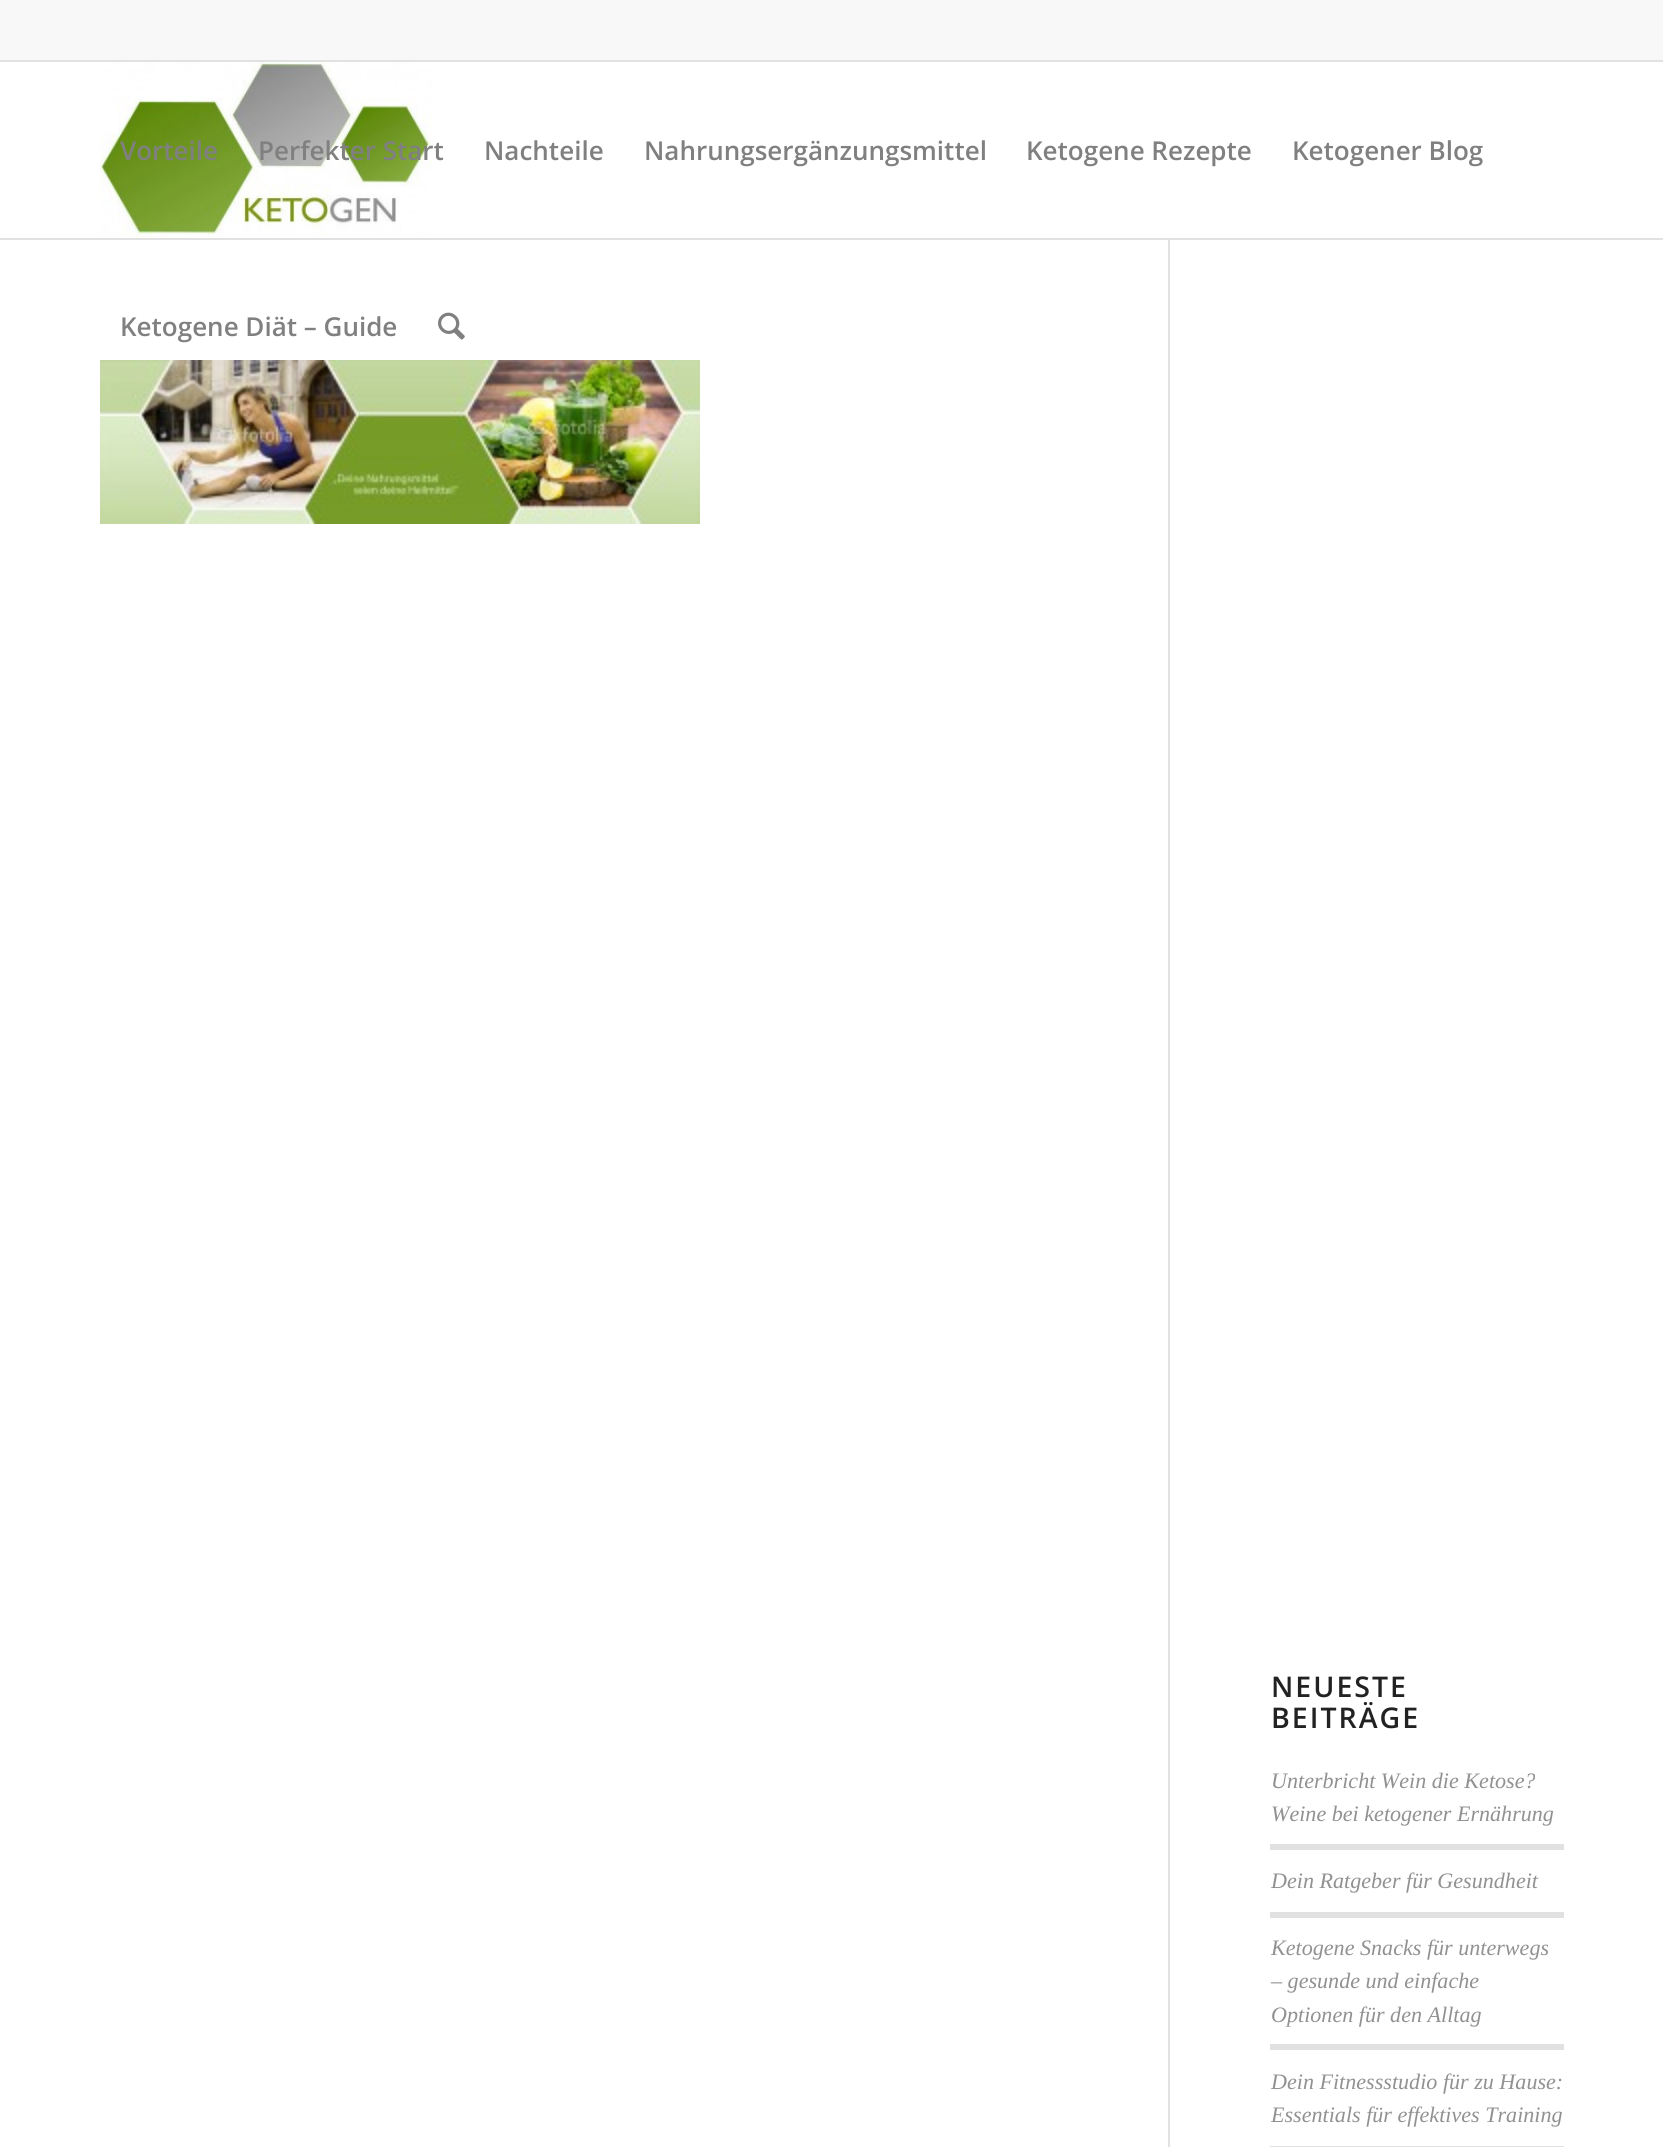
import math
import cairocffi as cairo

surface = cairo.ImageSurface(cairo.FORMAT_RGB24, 1663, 2147)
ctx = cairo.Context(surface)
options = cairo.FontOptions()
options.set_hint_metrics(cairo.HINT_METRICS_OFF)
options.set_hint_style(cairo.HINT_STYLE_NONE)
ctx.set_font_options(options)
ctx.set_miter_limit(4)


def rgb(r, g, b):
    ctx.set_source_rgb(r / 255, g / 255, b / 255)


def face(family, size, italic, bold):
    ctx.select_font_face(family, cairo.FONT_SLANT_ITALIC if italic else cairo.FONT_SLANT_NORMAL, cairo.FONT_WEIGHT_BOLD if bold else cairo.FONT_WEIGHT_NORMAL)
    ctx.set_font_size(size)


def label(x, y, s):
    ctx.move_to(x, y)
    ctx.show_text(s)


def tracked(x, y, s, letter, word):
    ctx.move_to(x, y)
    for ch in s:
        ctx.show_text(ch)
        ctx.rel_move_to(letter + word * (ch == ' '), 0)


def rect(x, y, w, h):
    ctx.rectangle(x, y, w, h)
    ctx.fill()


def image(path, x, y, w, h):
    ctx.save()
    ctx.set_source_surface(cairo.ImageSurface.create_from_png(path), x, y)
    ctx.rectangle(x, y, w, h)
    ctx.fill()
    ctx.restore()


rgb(255, 255, 255)
ctx.paint()
rgb(248, 248, 248)
rect(0, 0, 1663, 60)
rgb(225, 225, 225)
rect(0, 60, 1663, 2)
rect(1168, 238, 2, 1909)
rect(0, 238, 1663, 2)
image('image0.png', 100, 62, 332, 176)
face('Open Sans SemiBold', 26, 0, 0)
rgb(128, 128, 128)
label(120, 160, 'Vorteile')
label(258, 160, 'Perfekter Start')
label(484, 160, 'Nachteile')
label(644, 160, 'Nahrungsergänzungsmittel')
label(1026, 160, 'Ketogene Rezepte')
label(1292, 160, 'Ketogener Blog')
label(120, 336, 'Ketogene Diät – Guide')
image('image1.png', 438, 312, 27, 28)
image('image2.png', 100, 360, 600, 164)
face('Open Sans SemiBold', 28.5, 0, 0)
rgb(34, 34, 34)
tracked(1271, 1697, 'NEUESTE', 2, 0)
tracked(1271, 1728, 'BEITRÄGE', 2, 0)
face('Liberation Serif', 22.1, 1, 0)
rgb(145, 145, 145)
label(1271, 1788, 'Unterbricht Wein die Ketose?')
label(1271, 1821, 'Weine bei ketogener Ernährung')
rgb(225, 225, 225)
rect(1270, 1844, 294, 6)
rgb(145, 145, 145)
label(1271, 1888, 'Dein Ratgeber für Gesundheit')
rgb(225, 225, 225)
rect(1270, 1912, 294, 6)
rgb(145, 145, 145)
label(1271, 1955, 'Ketogene Snacks für unterwegs')
label(1271, 1988, '– gesunde und einfache')
label(1271, 2022, 'Optionen für den Alltag')
rgb(225, 225, 225)
rect(1270, 2044, 294, 6)
rgb(145, 145, 145)
label(1271, 2089, 'Dein Fitnessstudio für zu Hause:')
label(1271, 2122, 'Essentials für effektives Training')
rgb(225, 225, 225)
rect(1270, 2146, 294, 1)
surface.write_to_png('render.png')
